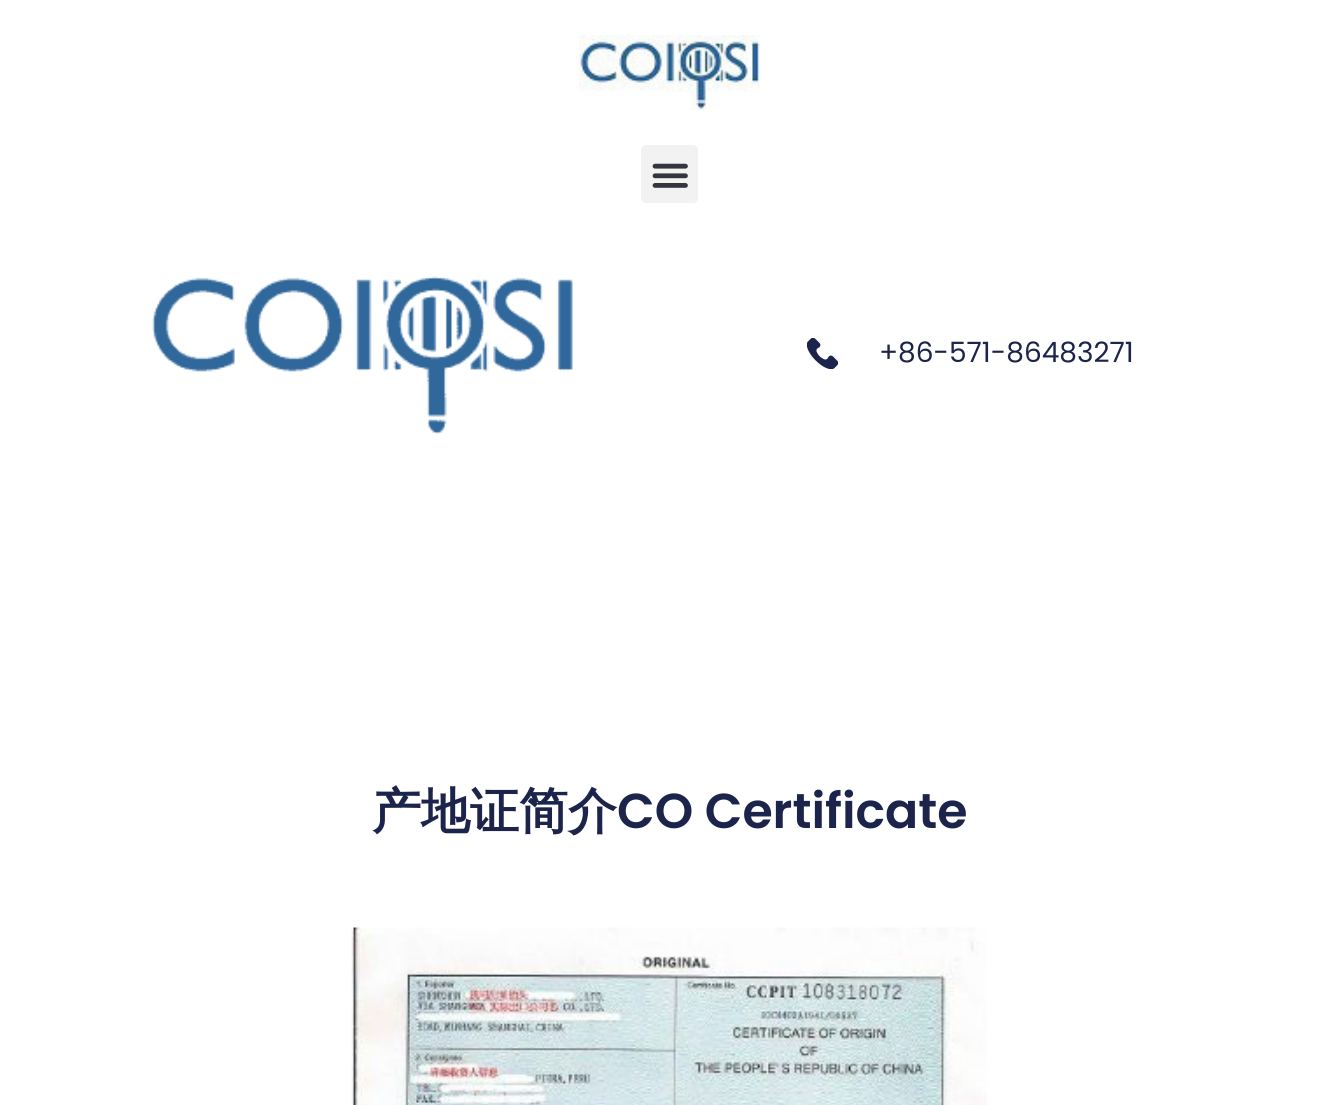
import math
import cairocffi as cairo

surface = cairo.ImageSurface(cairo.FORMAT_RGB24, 1338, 1105)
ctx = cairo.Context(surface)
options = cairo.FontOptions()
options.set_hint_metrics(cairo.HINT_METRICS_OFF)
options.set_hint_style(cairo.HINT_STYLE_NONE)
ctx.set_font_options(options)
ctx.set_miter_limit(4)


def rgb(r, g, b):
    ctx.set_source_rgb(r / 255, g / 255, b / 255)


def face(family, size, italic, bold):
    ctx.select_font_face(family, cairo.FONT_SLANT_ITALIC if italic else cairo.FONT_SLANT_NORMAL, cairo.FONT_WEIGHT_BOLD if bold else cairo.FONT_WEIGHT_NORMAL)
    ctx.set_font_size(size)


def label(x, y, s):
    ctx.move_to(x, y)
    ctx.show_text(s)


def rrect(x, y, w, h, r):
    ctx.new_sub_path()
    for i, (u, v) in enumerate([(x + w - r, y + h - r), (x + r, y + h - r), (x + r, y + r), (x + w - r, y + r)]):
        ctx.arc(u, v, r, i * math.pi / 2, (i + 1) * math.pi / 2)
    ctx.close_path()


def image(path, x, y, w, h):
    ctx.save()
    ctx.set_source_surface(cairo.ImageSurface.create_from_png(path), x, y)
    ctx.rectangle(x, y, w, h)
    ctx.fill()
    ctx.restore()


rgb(255, 255, 255)
ctx.paint()
image('image0.png', 579, 35, 181, 76)
rgb(242, 242, 242)
rrect(641, 145, 57, 58, 5)
ctx.fill()
image('image1.png', 652, 163, 36, 25)
image('image2.png', 152, 276, 421, 158)
image('image3.png', 807, 338, 31, 31)
face('Poppins', 28, 0, 0)
rgb(28, 36, 75)
label(879, 362, '+86-571-86483271')
face('WenQuanYi Zen Hei', 49, 0, 1)
label(372, 828, '产地证简介')
face('Poppins SemiBold', 49, 0, 0)
label(617, 828, 'CO Certificate')
image('image4.png', 351, 927, 636, 178)
surface.write_to_png('render.png')
